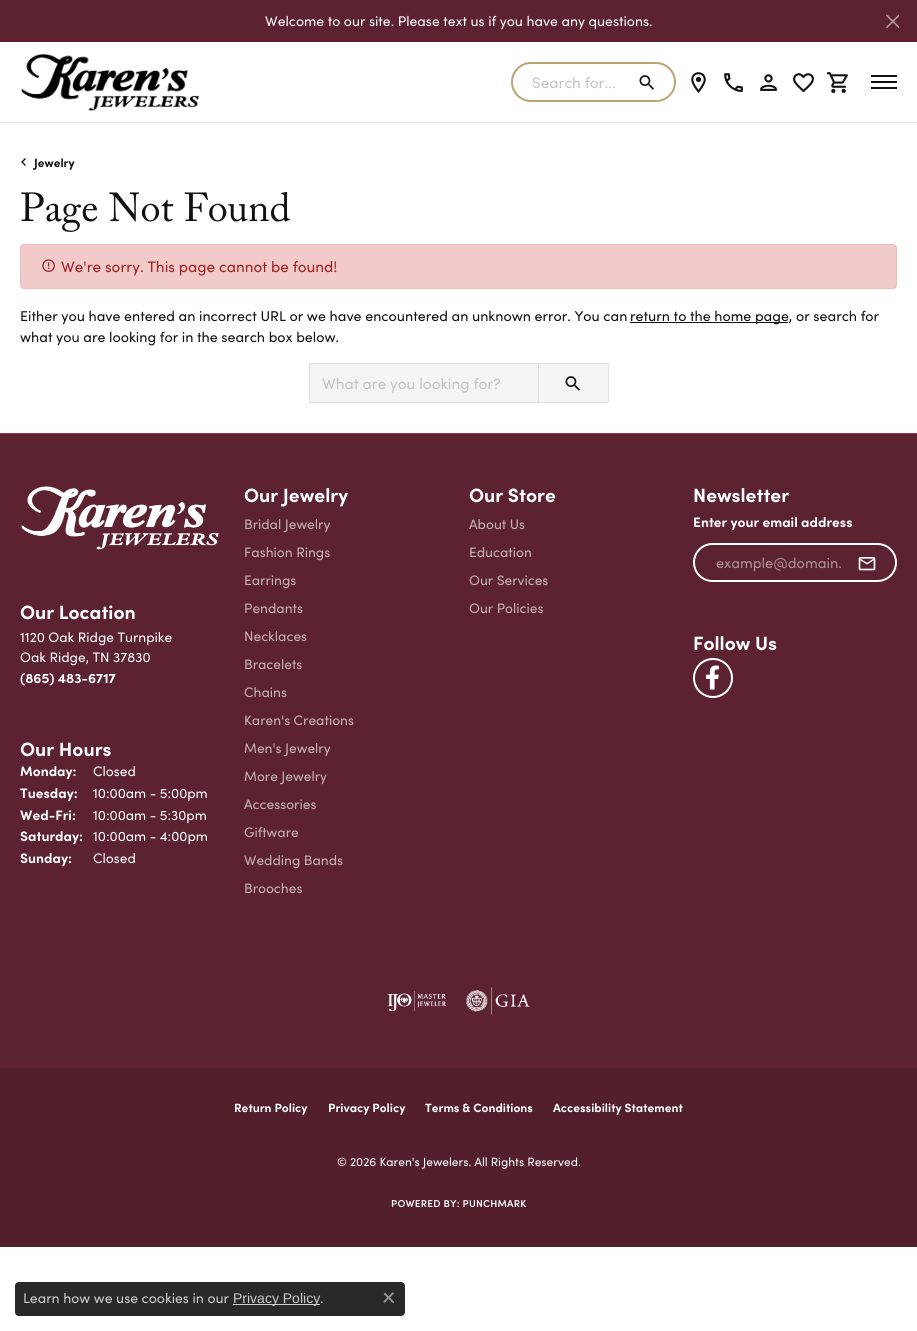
import math
import cairocffi as cairo

surface = cairo.ImageSurface(cairo.FORMAT_RGB24, 917, 1331)
ctx = cairo.Context(surface)
options = cairo.FontOptions()
options.set_hint_metrics(cairo.HINT_METRICS_OFF)
options.set_hint_style(cairo.HINT_STYLE_NONE)
ctx.set_font_options(options)
ctx.set_miter_limit(4)


def rgb(r, g, b):
    ctx.set_source_rgb(r / 255, g / 255, b / 255)


def face(family, size, italic, bold):
    ctx.select_font_face(family, cairo.FONT_SLANT_ITALIC if italic else cairo.FONT_SLANT_NORMAL, cairo.FONT_WEIGHT_BOLD if bold else cairo.FONT_WEIGHT_NORMAL)
    ctx.set_font_size(size)


def label(x, y, s):
    ctx.move_to(x, y)
    ctx.show_text(s)


def tracked(x, y, s, letter, word):
    ctx.move_to(x, y)
    for ch in s:
        ctx.show_text(ch)
        ctx.rel_move_to(letter + word * (ch == ' '), 0)


def rect(x, y, w, h):
    ctx.rectangle(x, y, w, h)
    ctx.fill()


def rrect(x, y, w, h, r):
    ctx.new_sub_path()
    for i, (u, v) in enumerate([(x + w - r, y + h - r), (x + r, y + h - r), (x + r, y + r), (x + w - r, y + r)]):
        ctx.arc(u, v, r, i * math.pi / 2, (i + 1) * math.pi / 2)
    ctx.close_path()


def image(path, x, y, w, h):
    ctx.save()
    ctx.set_source_surface(cairo.ImageSurface.create_from_png(path), x, y)
    ctx.rectangle(x, y, w, h)
    ctx.fill()
    ctx.restore()


rgb(255, 255, 255)
ctx.paint()
rgb(92, 34, 47)
rect(0, 0, 917, 42)
face('Sofia', 14, 0, 0)
rgb(255, 255, 255)
label(265, 26, 'Welcome to our site. Please text us if you have any questions.')
image('image0.png', 886, 14, 13, 14)
ctx.rectangle(-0.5, 41.5, 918, 81)
ctx.set_source_rgba(0, 0, 0, 0.1)
ctx.set_line_width(1)
ctx.stroke()
image('image1.png', 21, 53, 179, 58)
rrect(512, 63, 163, 38, 19)
rgb(187, 164, 114)
ctx.set_line_width(2)
ctx.stroke()
face('Sofia', 15.25, 0, 0)
rgb(196, 196, 194)
label(532, 88, 'Search for...')
image('image2.png', 639, 75, 15, 15)
image('image3.png', 691, 72, 15, 21)
image('image4.png', 724, 73, 19, 19)
image('image5.png', 760, 74, 17, 17)
image('image6.png', 793, 73, 21, 20)
image('image7.png', 827, 72, 21, 21)
rgb(17, 17, 17)
rect(871, 75, 26, 2)
rect(871, 81, 26, 2)
rect(871, 87, 26, 2)
image('image8.png', 21, 158, 5, 8)
face('Sofia', 12, 0, 1)
label(34, 167, 'Jewelry')
face('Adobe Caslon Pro', 40.25, 0, 0)
label(20, 221, 'Page Not Found')
rgb(243, 202, 202)
rrect(20, 244, 877, 45, 4)
ctx.fill()
rrect(20.5, 244.5, 876, 44, 3.5)
ctx.set_source_rgba(0.847, 0.306, 0.31, 0.1)
ctx.set_line_width(1)
ctx.stroke()
image('image9.png', 42, 259, 13, 13)
face('Sofia', 15.25, 0, 0)
rgb(157, 35, 36)
label(61, 272, 'We\'re sorry. This page cannot be found!')
face('Sofia', 14.25, 0, 0)
rgb(17, 17, 17)
label(20, 321, 'Either you have entered an incorrect URL or we have encountered an unknown error. You can')
rect(630, 322, 158, 1)
label(630, 321, 'return to the home page, or search for')
label(20, 342, 'what you are looking for in the search box below.')
rgb(244, 244, 243)
ctx.rectangle(309.5, 363.5, 229, 39)
ctx.fill_preserve()
rgb(225, 225, 224)
ctx.stroke()
face('Sofia', 15.25, 0, 0)
rgb(196, 196, 194)
label(322, 389, 'What are you looking for?')
rgb(244, 244, 243)
ctx.rectangle(538.5, 363.5, 70, 39)
ctx.fill_preserve()
rgb(225, 225, 224)
ctx.stroke()
image('image10.png', 565, 376, 15, 15)
rgb(92, 34, 47)
rect(0, 434, 917, 634)
rgb(148, 55, 76)
rect(0, 433, 917, 1)
face('Sofia', 19.25, 0, 1)
rgb(255, 255, 255)
label(244, 502, 'Our Jewelry')
face('Sofia', 13.75, 0, 0)
rgb(198, 178, 182)
label(244, 529, 'Bridal Jewelry')
label(244, 557, 'Fashion Rings')
label(244, 585, 'Earrings')
label(244, 613, 'Pendants')
label(244, 641, 'Necklaces')
label(244, 669, 'Bracelets')
label(244, 697, 'Chains')
label(244, 725, 'Karen\'s Creations')
label(244, 753, 'Men\'s Jewelry')
label(244, 781, 'More Jewelry')
label(244, 809, 'Accessories')
label(244, 837, 'Giftware')
label(244, 865, 'Wedding Bands')
label(244, 893, 'Brooches')
face('Sofia', 19.25, 0, 1)
rgb(255, 255, 255)
label(469, 502, 'Our Store')
face('Sofia', 13.75, 0, 0)
rgb(198, 178, 182)
label(469, 529, 'About Us')
label(469, 557, 'Education')
label(469, 585, 'Our Services')
label(469, 613, 'Our Policies')
face('Sofia', 19.25, 0, 1)
rgb(255, 255, 255)
label(693, 502, 'Newsletter')
face('Sofia', 13.75, 0, 1)
label(693, 527, 'Enter your email address')
rrect(694, 544, 202, 37, 18.5)
ctx.set_line_width(2)
ctx.stroke()
face('Sofia', 14.5, 0, 0)
rgb(174, 145, 151)
label(716, 568, 'example@domain.')
image('image11.png', 858, 557, 18, 14)
face('Sofia', 19.25, 0, 1)
rgb(255, 255, 255)
label(693, 650, 'Follow Us')
ctx.new_path()
ctx.arc(713, 678, 19, 0, 2 * math.pi)
ctx.stroke()
image('image12.png', 706, 665, 13, 25)
image('image13.png', 21, 486, 198, 64)
label(20, 619, 'Our Location')
face('Sofia', 13.75, 0, 0)
label(20, 642, '1120 Oak Ridge Turnpike')
label(20, 662, 'Oak Ridge, TN 37830')
face('Sofia', 13.75, 0, 1)
label(20, 683, '(865) 483-6717')
face('Sofia', 19.25, 0, 1)
label(20, 756, 'Our Hours')
face('Sofia', 13.75, 0, 1)
label(20, 776, 'Monday:')
face('Sofia', 13.75, 0, 0)
label(93, 776, 'Closed')
face('Sofia', 13.75, 0, 1)
label(20, 798, 'Tuesday:')
face('Sofia', 13.75, 0, 0)
label(93, 798, '10:00am - 5:00pm')
face('Sofia', 13.75, 0, 1)
label(20, 820, 'Wed-Fri:')
face('Sofia', 13.75, 0, 0)
label(93, 820, '10:00am - 5:30pm')
face('Sofia', 13.75, 0, 1)
label(20, 841, 'Saturday:')
face('Sofia', 13.75, 0, 0)
label(93, 841, '10:00am - 4:00pm')
face('Sofia', 13.75, 0, 1)
label(20, 863, 'Sunday:')
face('Sofia', 13.75, 0, 0)
label(93, 863, 'Closed')
image('image14.png', 387, 991, 59, 20)
image('image15.png', 466, 987, 64, 28)
rgb(83, 31, 42)
rect(0, 1068, 917, 179)
face('Sofia', 12, 0, 1)
rgb(255, 255, 255)
label(234, 1112, 'Return Policy')
label(328, 1112, 'Privacy Policy')
label(425, 1112, 'Terms & Conditions')
label(553, 1112, 'Accessibility Statement')
face('Sofia', 12, 0, 0)
label(337, 1166, '© 2026 Karen\'s Jewelers. All Rights Reserved.')
face('Sofia SemiBold', 10, 0, 0)
tracked(391, 1207, 'POWERED BY: PUNCHMARK', 0.25, 0)
rgb(41, 41, 41)
rrect(15, 1282, 390, 34, 4)
ctx.fill()
face('Sofia', 14, 0, 0)
rgb(204, 204, 204)
label(23, 1303, 'Learn how we use cookies in our')
rect(233, 1304, 87, 1)
face('Liberation Sans', 14, 0, 0)
label(233, 1303, 'Privacy Policy')
face('Sofia', 14, 0, 0)
label(320, 1303, '.')
image('image16.png', 383, 1292, 12, 12)
surface.write_to_png('render.png')
